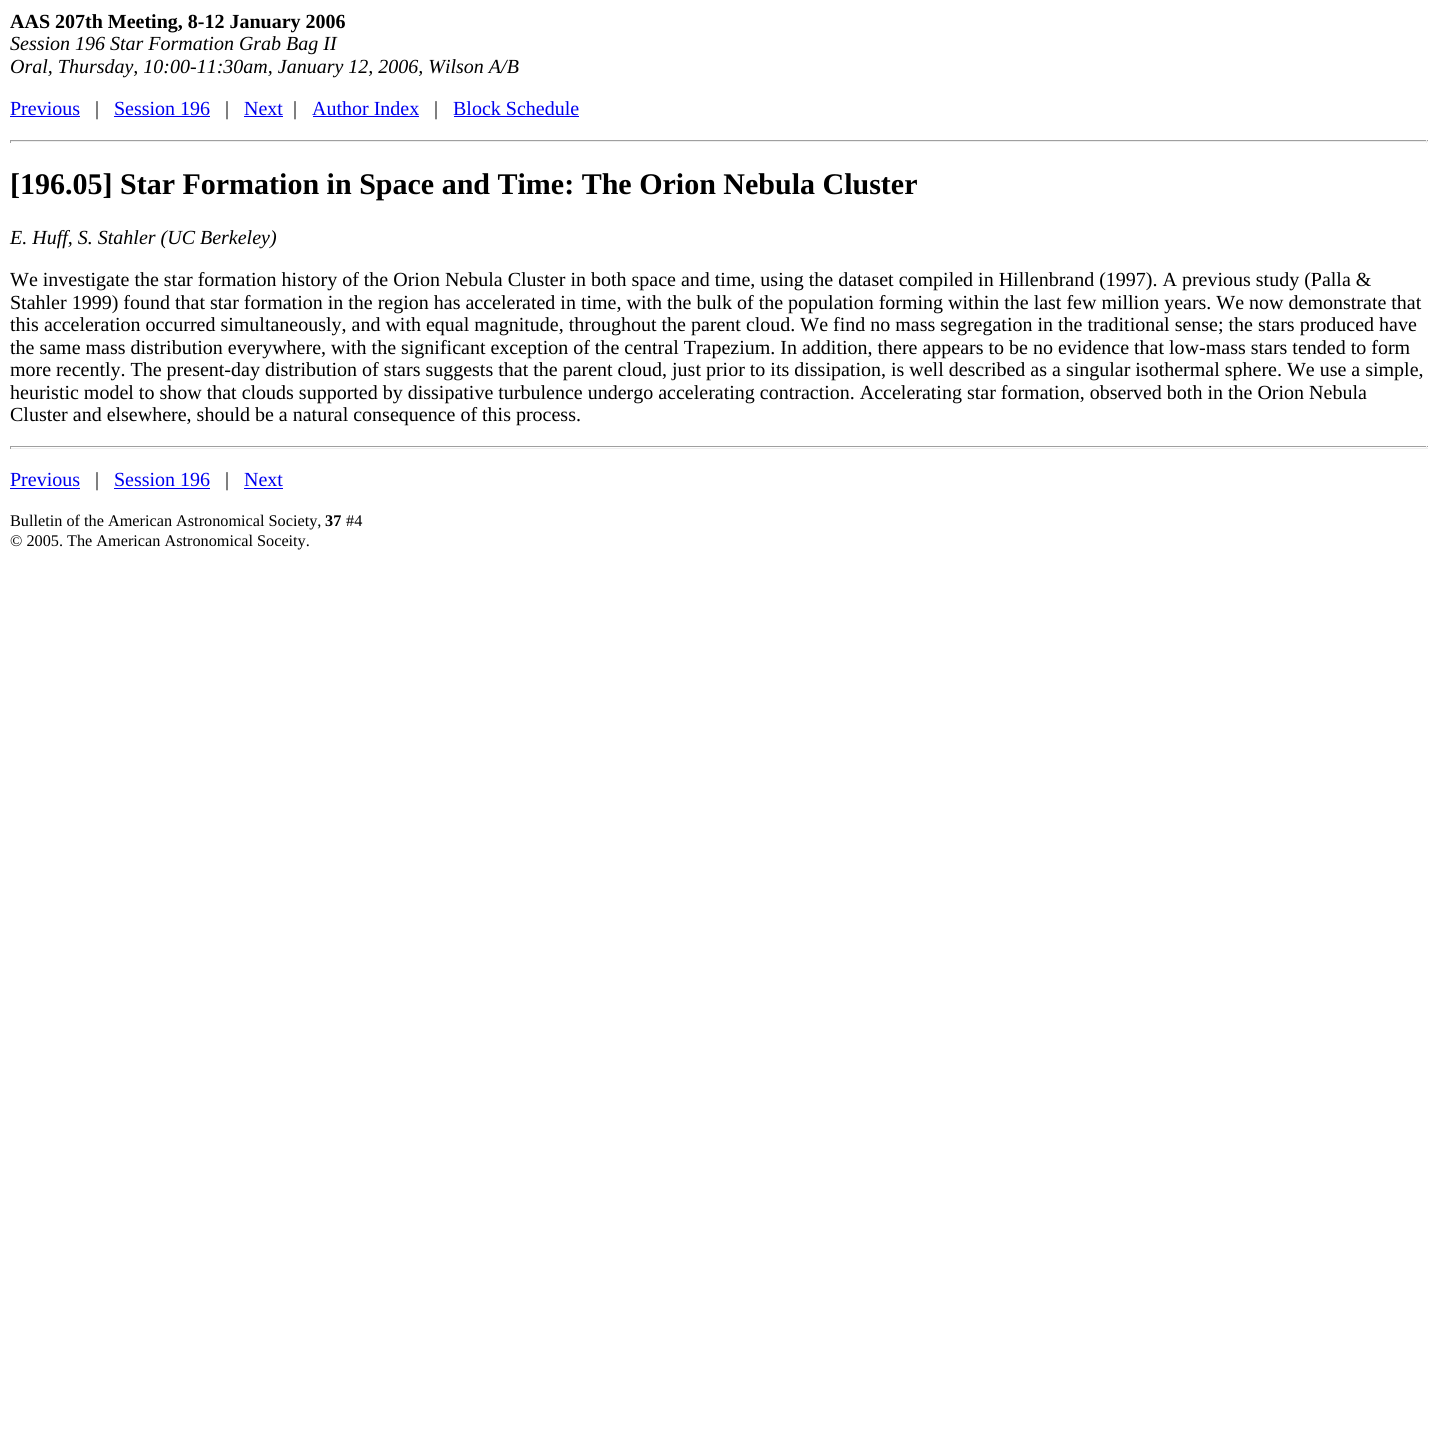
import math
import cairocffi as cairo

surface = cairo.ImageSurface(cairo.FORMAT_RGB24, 1437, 1431)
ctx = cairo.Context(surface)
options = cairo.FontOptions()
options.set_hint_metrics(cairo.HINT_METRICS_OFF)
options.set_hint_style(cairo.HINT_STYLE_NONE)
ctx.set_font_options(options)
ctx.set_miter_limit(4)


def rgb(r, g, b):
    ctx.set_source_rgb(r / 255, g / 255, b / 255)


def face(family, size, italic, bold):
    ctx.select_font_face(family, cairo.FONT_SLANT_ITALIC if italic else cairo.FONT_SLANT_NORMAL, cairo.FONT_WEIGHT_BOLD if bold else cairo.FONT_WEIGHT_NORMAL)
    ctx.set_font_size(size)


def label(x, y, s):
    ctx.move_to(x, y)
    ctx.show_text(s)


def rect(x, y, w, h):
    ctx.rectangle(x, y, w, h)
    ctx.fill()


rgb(255, 255, 255)
ctx.paint()
face('Liberation Serif', 20, 0, 1)
rgb(0, 0, 0)
label(10, 28, 'AAS 207th Meeting, 8-12 January 2006')
face('Liberation Serif', 20, 1, 0)
label(10, 50, 'Session 196 Star Formation Grab Bag II')
label(10, 73, 'Oral, Thursday, 10:00-11:30am, January 12, 2006, Wilson A/B')
face('Liberation Serif', 20, 0, 0)
rgb(0, 0, 238)
label(10, 115, 'Previous')
rect(10, 116, 70, 1)
rgb(0, 0, 0)
label(95, 115, '|')
rgb(0, 0, 238)
label(114, 115, 'Session 196')
rect(114, 116, 96, 1)
rgb(0, 0, 0)
label(225, 115, '|')
rgb(0, 0, 238)
label(244, 115, 'Next')
rect(244, 116, 39, 1)
rgb(0, 0, 0)
label(293, 115, '|')
rgb(0, 0, 238)
label(312, 115, 'Author Index')
rect(313, 116, 106, 1)
rgb(0, 0, 0)
label(434, 115, '|')
rgb(0, 0, 238)
label(453, 115, 'Block Schedule')
rect(454, 116, 125, 1)
rgb(159, 159, 159)
rect(10, 140, 1418, 1)
rgb(238, 238, 238)
rect(1426, 140, 1, 3)
rect(10, 141, 1418, 1)
rgb(159, 159, 159)
rect(10, 140, 1, 3)
face('Liberation Serif', 30, 0, 1)
rgb(0, 0, 0)
label(10, 194, '[196.05] Star Formation in Space and Time: The Orion Nebula Cluster')
face('Liberation Serif', 20, 1, 0)
label(10, 244, 'E. Huff, S. Stahler (UC Berkeley)')
face('Liberation Serif', 20, 0, 0)
label(10, 286, 'We investigate the star formation history of the Orion Nebula Cluster in both space and time, using the dataset compiled in Hillenbrand (1997). A previous study (Palla &')
label(10, 309, 'Stahler 1999) found that star formation in the region has accelerated in time, with the bulk of the population forming within the last few million years. We now demonstrate that')
label(10, 331, 'this acceleration occurred simultaneously, and with equal magnitude, throughout the parent cloud. We find no mass segregation in the traditional sense; the stars produced have')
label(10, 354, 'the same mass distribution everywhere, with the significant exception of the central Trapezium. In addition, there appears to be no evidence that low-mass stars tended to form')
label(10, 376, 'more recently. The present-day distribution of stars suggests that the parent cloud, just prior to its dissipation, is well described as a singular isothermal sphere. We use a simple,')
label(10, 399, 'heuristic model to show that clouds supported by dissipative turbulence undergo accelerating contraction. Accelerating star formation, observed both in the Orion Nebula')
label(10, 421, 'Cluster and elsewhere, should be a natural consequence of this process.')
rgb(159, 159, 159)
rect(10, 446, 1418, 1)
rgb(238, 238, 238)
rect(1426, 446, 1, 3)
rect(10, 448, 1418, 1)
rgb(159, 159, 159)
rect(10, 446, 1, 3)
rgb(0, 0, 238)
label(10, 486, 'Previous')
rect(10, 488, 70, 1)
rgb(0, 0, 0)
label(95, 486, '|')
rgb(0, 0, 238)
label(114, 486, 'Session 196')
rect(114, 488, 96, 1)
rgb(0, 0, 0)
label(225, 486, '|')
rgb(0, 0, 238)
label(244, 486, 'Next')
rect(244, 488, 39, 1)
face('Liberation Serif', 16.25, 0, 0)
rgb(0, 0, 0)
label(10, 526, 'Bulletin of the American Astronomical Society,')
face('Liberation Serif', 16.25, 0, 1)
label(325, 526, '37')
face('Liberation Serif', 16.25, 0, 0)
label(346, 526, '#4')
label(10, 546, '© 2005. The American Astronomical Soceity.')
surface.write_to_png('render.png')
